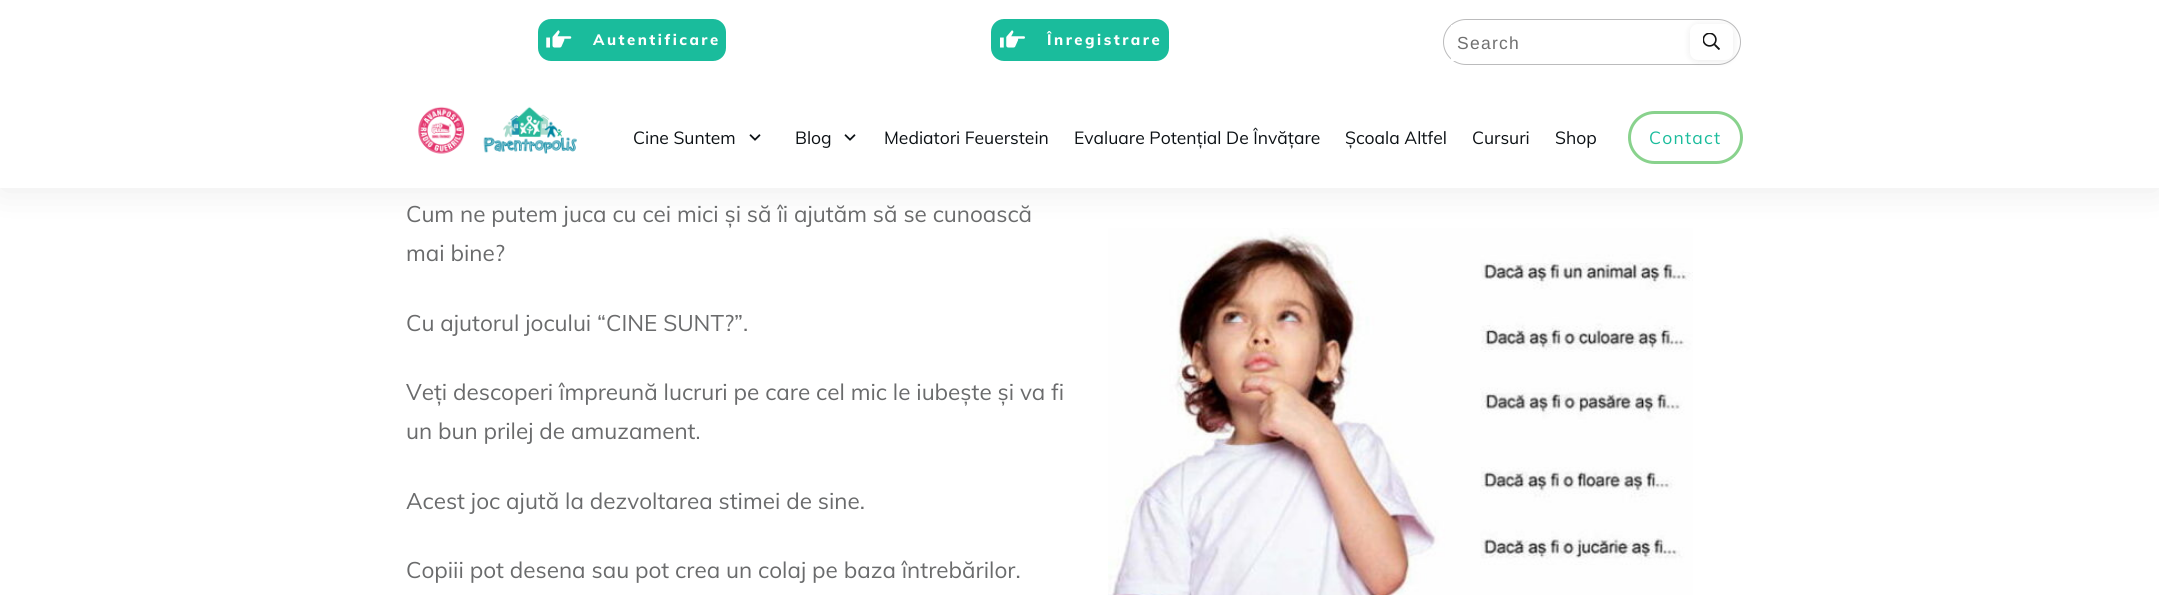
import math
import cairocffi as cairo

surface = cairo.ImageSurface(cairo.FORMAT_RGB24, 2159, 595)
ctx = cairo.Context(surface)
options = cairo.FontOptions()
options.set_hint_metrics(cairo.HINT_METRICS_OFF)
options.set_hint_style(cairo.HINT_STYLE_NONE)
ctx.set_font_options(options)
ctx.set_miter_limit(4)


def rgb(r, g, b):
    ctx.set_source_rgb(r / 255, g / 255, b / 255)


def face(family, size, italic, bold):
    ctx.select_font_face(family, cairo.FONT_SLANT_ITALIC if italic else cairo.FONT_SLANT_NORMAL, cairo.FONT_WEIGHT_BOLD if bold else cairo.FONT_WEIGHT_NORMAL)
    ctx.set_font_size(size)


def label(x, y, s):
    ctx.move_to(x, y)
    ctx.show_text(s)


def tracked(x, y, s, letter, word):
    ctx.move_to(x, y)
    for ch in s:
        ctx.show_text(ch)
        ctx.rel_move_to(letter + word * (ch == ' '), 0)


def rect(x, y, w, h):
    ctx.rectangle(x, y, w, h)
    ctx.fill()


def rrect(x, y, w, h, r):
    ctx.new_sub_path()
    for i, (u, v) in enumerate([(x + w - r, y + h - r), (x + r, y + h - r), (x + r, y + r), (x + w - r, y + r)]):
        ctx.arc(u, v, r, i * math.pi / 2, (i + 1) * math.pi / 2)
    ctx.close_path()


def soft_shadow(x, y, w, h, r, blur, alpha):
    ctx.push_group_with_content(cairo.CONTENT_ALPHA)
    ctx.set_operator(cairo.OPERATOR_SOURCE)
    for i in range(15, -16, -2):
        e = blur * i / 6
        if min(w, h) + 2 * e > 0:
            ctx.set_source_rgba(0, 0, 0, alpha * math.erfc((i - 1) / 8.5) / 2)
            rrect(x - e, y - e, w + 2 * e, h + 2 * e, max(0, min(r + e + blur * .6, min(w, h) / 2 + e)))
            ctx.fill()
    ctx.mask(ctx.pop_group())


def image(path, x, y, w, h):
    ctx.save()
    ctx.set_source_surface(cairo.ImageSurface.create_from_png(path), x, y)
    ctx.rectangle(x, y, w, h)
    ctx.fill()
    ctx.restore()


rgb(255, 255, 255)
ctx.paint()
image('image5.png', 1108, 228, 585, 367)
rgb(0, 0, 0)
soft_shadow(0, 3, 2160, 187, 0, 19, 0.08)
rgb(255, 255, 255)
rect(0, 0, 2159, 188)
rgb(26, 188, 156)
rrect(538, 19, 188, 42, 13)
ctx.fill()
image('image0.png', 546, 30, 26, 18)
face('Muli ExtraBold', 15, 0, 0)
rgb(255, 255, 255)
tracked(593, 45, 'Autentificare', 2.5, 0)
rgb(26, 188, 156)
rrect(991, 19, 178, 42, 13)
ctx.fill()
image('image1.png', 1000, 30, 25, 18)
rgb(255, 255, 255)
tracked(1047, 45, 'Înregistrare', 2.5, 0)
rrect(1443.5, 19.5, 297, 45, 22.5)
rgb(187, 187, 188)
ctx.set_line_width(1)
ctx.stroke()
rgb(255, 255, 255)
rect(1451, 25, 4, 36)
face('Liberation Sans', 17.5, 0, 0)
rgb(112, 112, 112)
tracked(1457, 49, 'Search', 1.25, 0)
rgb(0, 0, 0)
soft_shadow(1690, 25, 43, 36, 8, 4, 0.08)
rgb(255, 255, 255)
rrect(1690, 24, 43, 36, 8)
ctx.fill()
image('image2.png', 1703, 33, 17, 17)
image('image3.png', 418, 106, 159, 48)
face('Muli', 17.5, 0, 0)
rgb(12, 17, 21)
label(633, 144, 'Cine Suntem')
image('image4.png', 749, 134, 12, 7)
label(795, 144, 'Blog')
image('image4.png', 844, 134, 12, 7)
label(884, 144, 'Mediatori Feuerstein')
label(1074, 144, 'Evaluare Potențial De Învățare')
label(1345, 144, 'Școala Altfel')
label(1472, 144, 'Cursuri')
label(1555, 144, 'Shop')
rrect(1629.5, 112.5, 112, 50, 25)
rgb(137, 210, 141)
ctx.set_line_width(3)
ctx.stroke()
rgb(26, 188, 156)
tracked(1649, 144, 'Contact', 1.25, 0)
face('Muli', 22.5, 0, 0)
rgb(106, 107, 108)
label(406, 222, 'Cum ne putem juca cu cei mici și să îi ajutăm să se cunoască')
label(406, 261, 'mai bine?')
label(406, 331, 'Cu ajutorul jocului “CINE SUNT?”.')
label(406, 400, 'Veți descoperi împreună lucruri pe care cel mic le iubește și va fi')
label(406, 439, 'un bun prilej de amuzament.')
label(406, 509, 'Acest joc ajută la dezvoltarea stimei de sine.')
label(406, 578, 'Copiii pot desena sau pot crea un colaj pe baza întrebărilor.')
surface.write_to_png('render.png')
